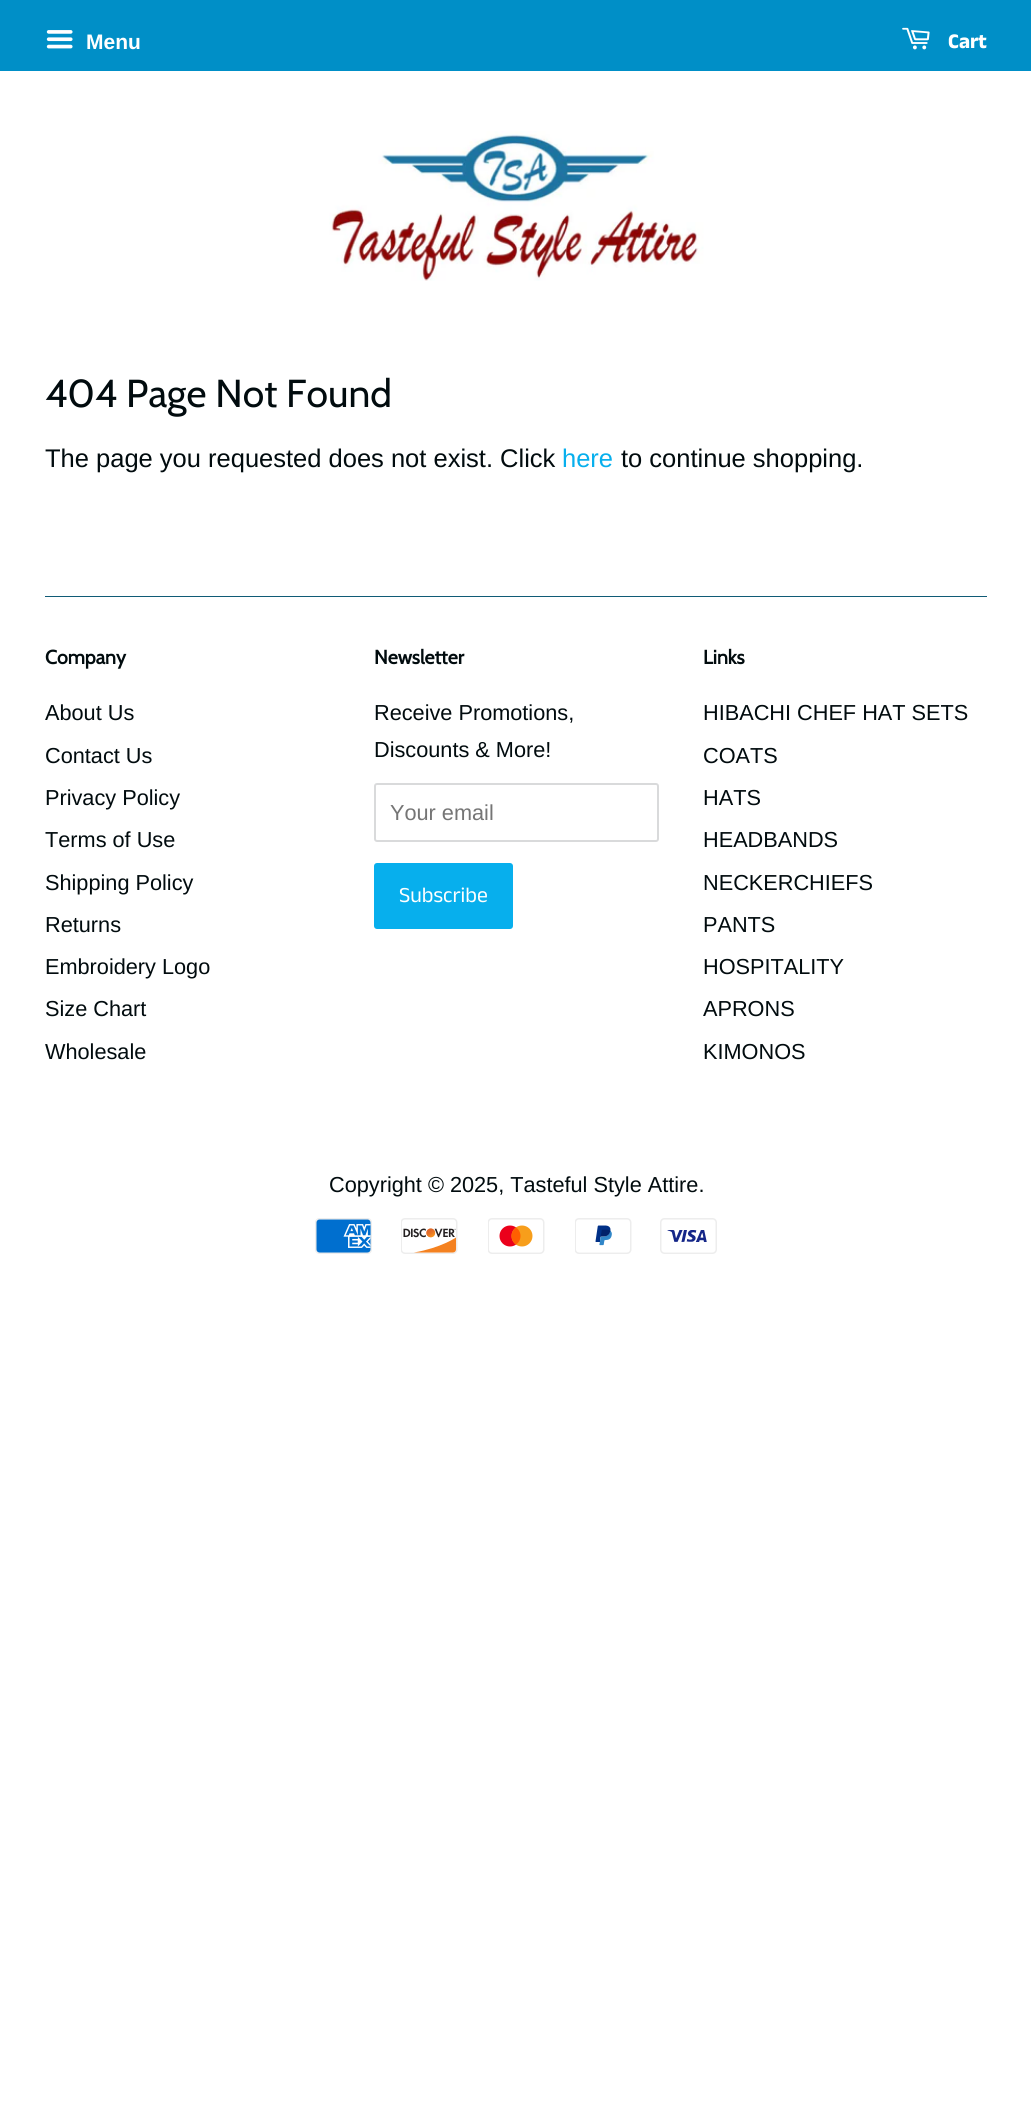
import math
import cairocffi as cairo

surface = cairo.ImageSurface(cairo.FORMAT_RGB24, 1031, 2126)
ctx = cairo.Context(surface)
options = cairo.FontOptions()
options.set_hint_metrics(cairo.HINT_METRICS_OFF)
options.set_hint_style(cairo.HINT_STYLE_NONE)
ctx.set_font_options(options)
ctx.set_miter_limit(4)


def rgb(r, g, b):
    ctx.set_source_rgb(r / 255, g / 255, b / 255)


def face(family, size, italic, bold):
    ctx.select_font_face(family, cairo.FONT_SLANT_ITALIC if italic else cairo.FONT_SLANT_NORMAL, cairo.FONT_WEIGHT_BOLD if bold else cairo.FONT_WEIGHT_NORMAL)
    ctx.set_font_size(size)


def label(x, y, s):
    ctx.move_to(x, y)
    ctx.show_text(s)


def rect(x, y, w, h):
    ctx.rectangle(x, y, w, h)
    ctx.fill()


def rrect(x, y, w, h, r):
    ctx.new_sub_path()
    for i, (u, v) in enumerate([(x + w - r, y + h - r), (x + r, y + h - r), (x + r, y + r), (x + w - r, y + r)]):
        ctx.arc(u, v, r, i * math.pi / 2, (i + 1) * math.pi / 2)
    ctx.close_path()


def image(path, x, y, w, h):
    ctx.save()
    ctx.set_source_surface(cairo.ImageSurface.create_from_png(path), x, y)
    ctx.rectangle(x, y, w, h)
    ctx.fill()
    ctx.restore()


rgb(255, 255, 255)
ctx.paint()
rgb(0, 143, 199)
rect(0, 0, 1031, 71)
image('image0.png', 46, 30, 27, 19)
face('Liberation Sans', 21, 0, 1)
rgb(255, 255, 255)
label(86, 49, 'Menu')
image('image1.png', 902, 27, 28, 23)
face('Anek Tamil', 21, 0, 1)
label(948, 48, 'Cart')
image('image2.png', 329, 131, 375, 150)
face('Cabin', 39, 0, 0)
rgb(1, 11, 14)
label(45, 407, '404 Page Not Found')
face('Arimo', 25.5, 0, 0)
label(45, 467, 'The page you requested does not exist. Click')
rgb(7, 175, 237)
label(562, 467, 'here')
rgb(1, 11, 14)
label(621, 467, 'to continue shopping.')
rgb(16, 91, 118)
rect(45, 596, 942, 1)
face('Cabin', 19.5, 0, 1)
rgb(1, 11, 14)
label(45, 664, 'Company')
face('Arimo', 21.7, 0, 0)
label(45, 720, 'About Us')
label(45, 763, 'Contact Us')
label(45, 805, 'Privacy Policy')
label(45, 847, 'Terms of Use')
label(45, 890, 'Shipping Policy')
label(45, 932, 'Returns')
label(45, 974, 'Embroidery Logo')
label(45, 1016, 'Size Chart')
label(45, 1059, 'Wholesale')
face('Cabin', 19.5, 0, 1)
label(374, 664, 'Newsletter')
face('Arimo', 21.7, 0, 0)
label(374, 720, 'Receive Promotions,')
label(374, 757, 'Discounts & More!')
rrect(375, 784, 283, 57, 2)
rgb(217, 218, 219)
ctx.stroke()
rgb(117, 117, 117)
label(390, 820, 'Your email')
rgb(7, 175, 237)
rrect(374, 863, 139, 66, 3)
ctx.fill()
face('Anek Tamil', 21.7, 0, 0)
rgb(255, 255, 255)
label(399, 902, 'Subscribe')
face('Cabin', 19.5, 0, 1)
rgb(1, 11, 14)
label(703, 664, 'Links')
face('Arimo', 21.7, 0, 0)
label(703, 720, 'HIBACHI CHEF HAT SETS')
label(703, 763, 'COATS')
label(703, 805, 'HATS')
label(703, 847, 'HEADBANDS')
label(703, 890, 'NECKERCHIEFS')
label(703, 932, 'PANTS')
label(703, 974, 'HOSPITALITY')
label(703, 1016, 'APRONS')
label(703, 1059, 'KIMONOS')
label(329, 1192, 'Copyright © 2025, Tasteful Style Attire.')
image('image3.png', 315, 1218, 57, 36)
image('image4.png', 401, 1218, 57, 36)
image('image5.png', 488, 1218, 57, 36)
image('image6.png', 575, 1218, 57, 36)
image('image7.png', 660, 1218, 57, 36)
surface.write_to_png('render.png')
